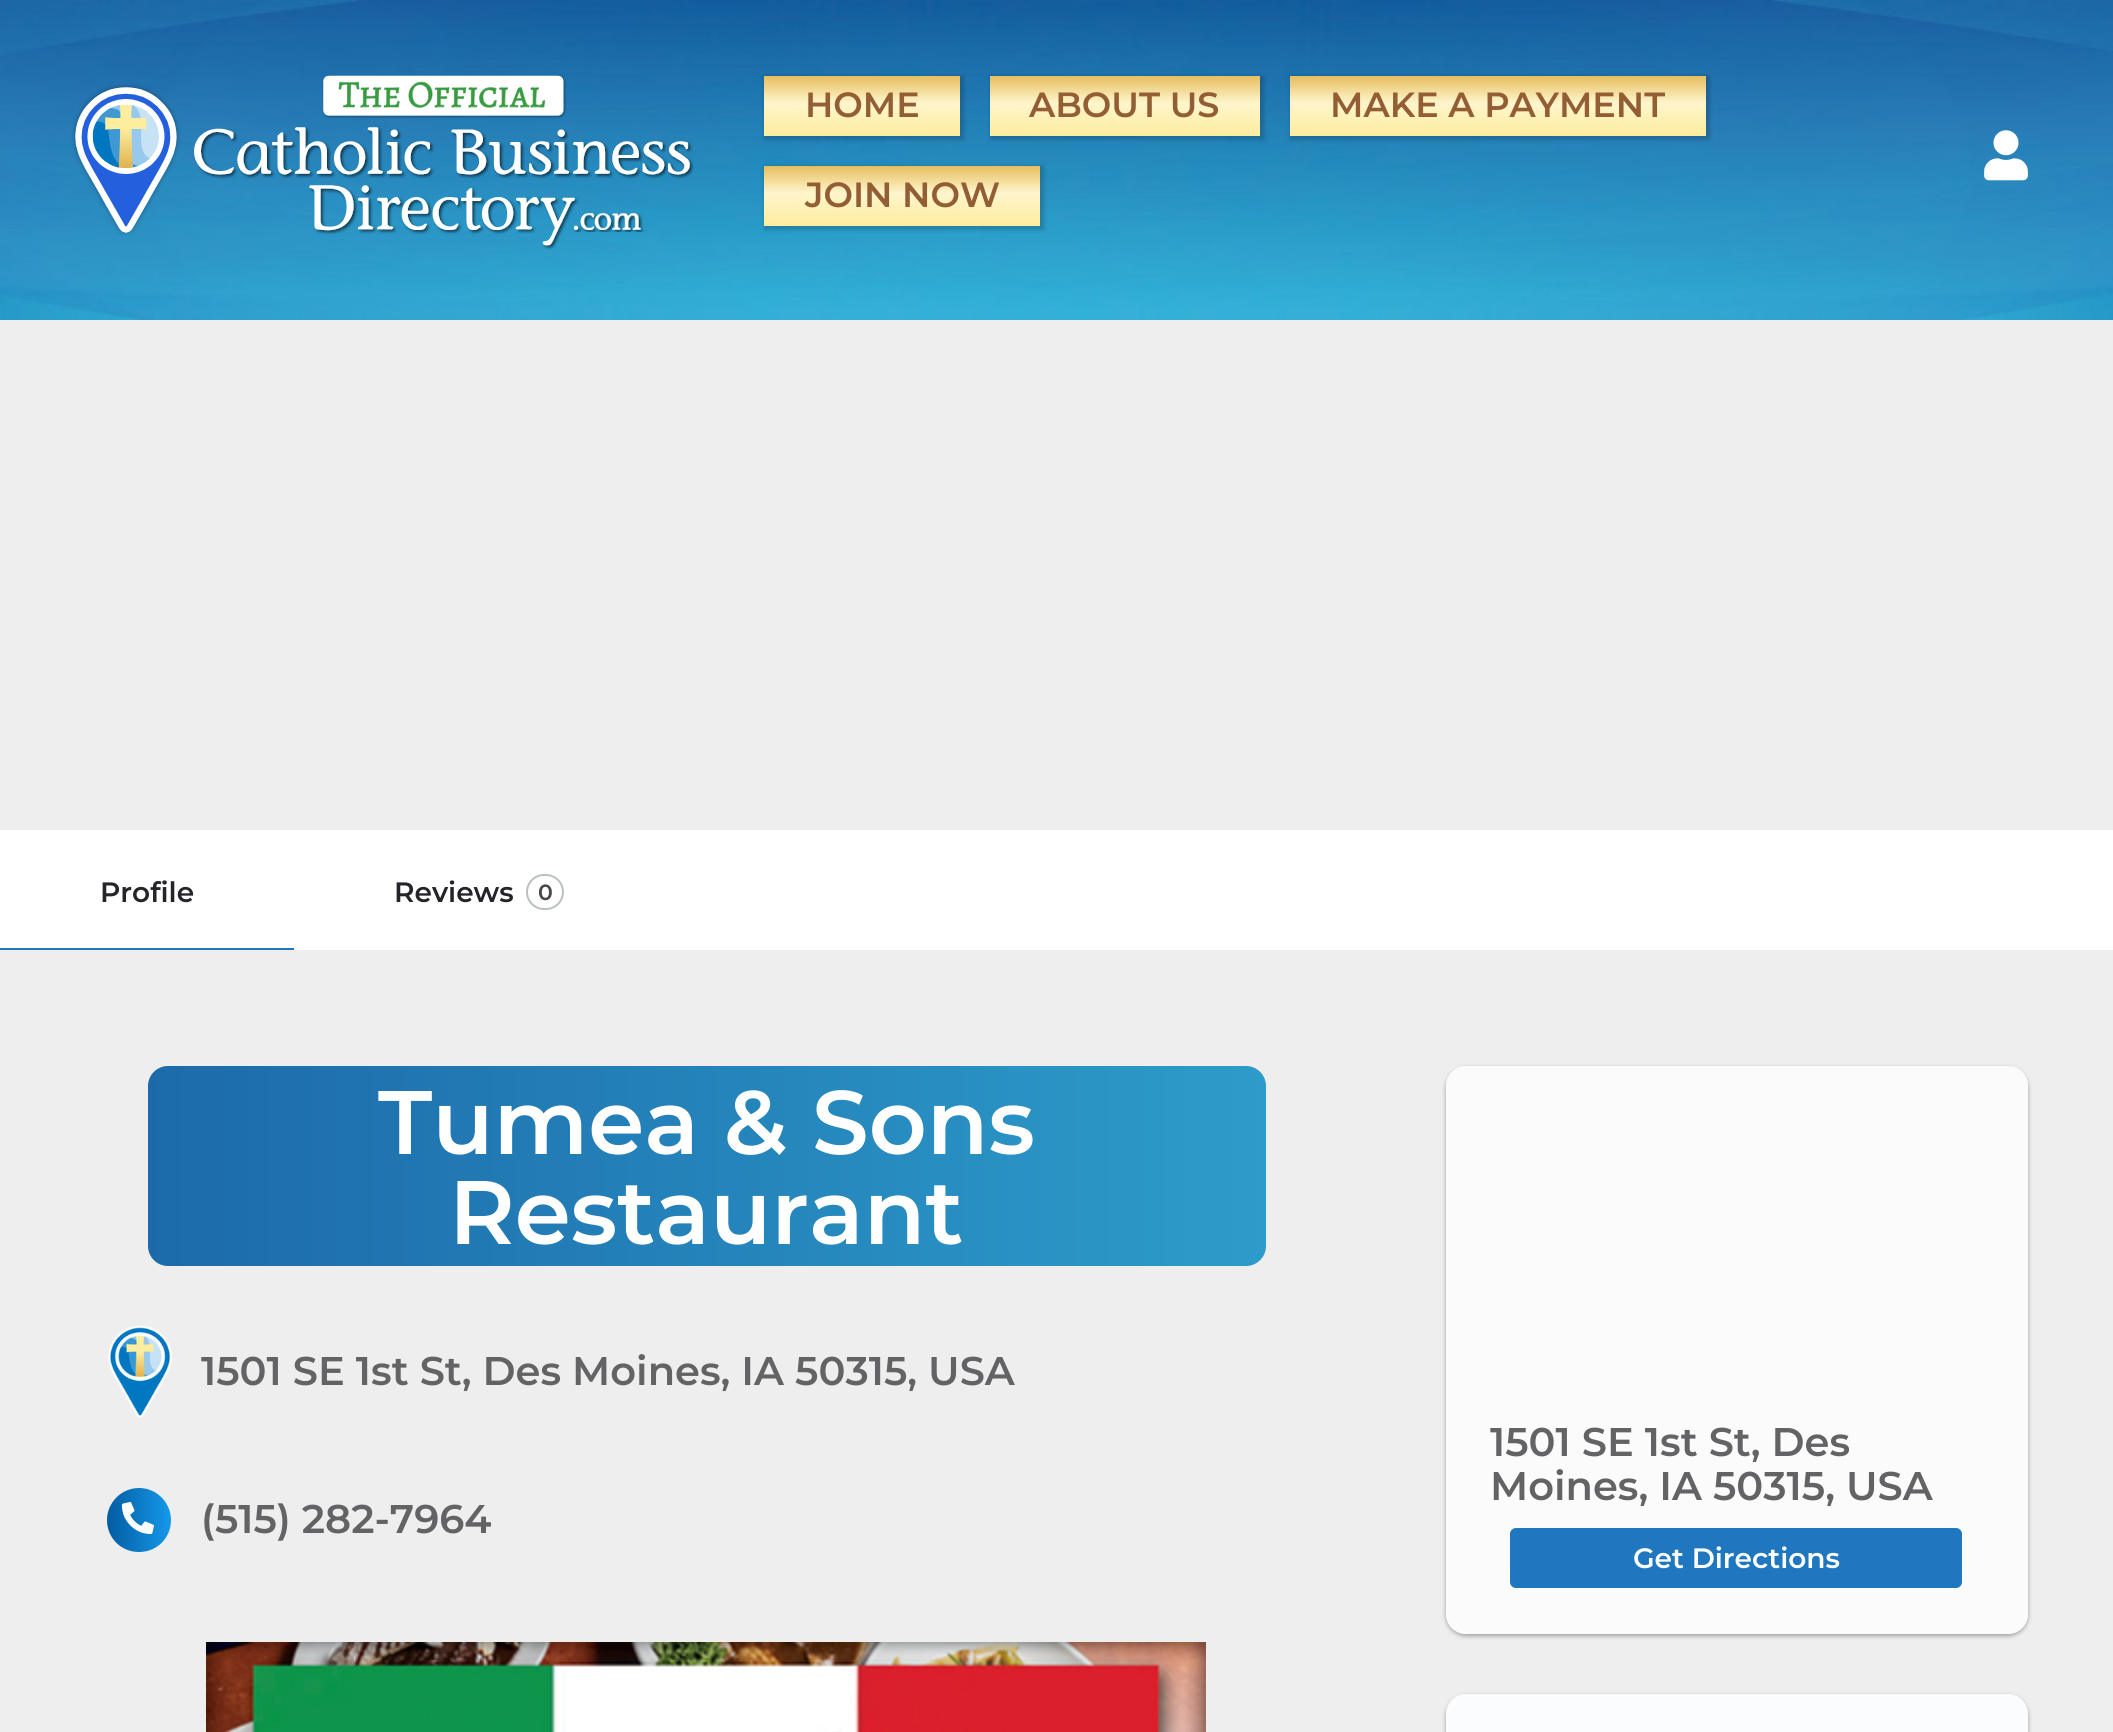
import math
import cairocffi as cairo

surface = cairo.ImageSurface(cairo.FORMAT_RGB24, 2113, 1732)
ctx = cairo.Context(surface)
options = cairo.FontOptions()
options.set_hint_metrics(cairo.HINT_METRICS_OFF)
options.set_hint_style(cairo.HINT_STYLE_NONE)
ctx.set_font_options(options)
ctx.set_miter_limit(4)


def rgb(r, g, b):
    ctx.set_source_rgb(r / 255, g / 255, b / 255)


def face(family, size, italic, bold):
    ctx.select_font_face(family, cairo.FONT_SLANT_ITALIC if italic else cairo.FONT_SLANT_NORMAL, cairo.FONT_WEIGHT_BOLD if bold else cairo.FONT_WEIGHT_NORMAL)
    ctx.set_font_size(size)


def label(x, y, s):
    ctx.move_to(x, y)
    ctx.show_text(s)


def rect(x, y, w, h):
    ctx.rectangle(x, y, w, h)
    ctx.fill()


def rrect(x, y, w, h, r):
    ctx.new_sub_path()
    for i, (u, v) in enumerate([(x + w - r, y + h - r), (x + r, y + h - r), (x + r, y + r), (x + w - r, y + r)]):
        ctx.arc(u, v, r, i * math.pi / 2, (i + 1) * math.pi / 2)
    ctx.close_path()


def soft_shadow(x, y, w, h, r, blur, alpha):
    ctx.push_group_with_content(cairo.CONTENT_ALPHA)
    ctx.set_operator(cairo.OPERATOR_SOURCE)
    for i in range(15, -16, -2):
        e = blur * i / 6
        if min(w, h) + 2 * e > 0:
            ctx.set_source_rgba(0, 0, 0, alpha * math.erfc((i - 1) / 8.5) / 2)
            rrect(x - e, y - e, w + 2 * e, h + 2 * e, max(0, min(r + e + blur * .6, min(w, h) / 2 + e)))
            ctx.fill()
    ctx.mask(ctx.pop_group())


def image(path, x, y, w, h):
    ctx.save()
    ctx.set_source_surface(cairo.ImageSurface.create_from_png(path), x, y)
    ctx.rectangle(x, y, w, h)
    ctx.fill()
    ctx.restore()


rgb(238, 238, 238)
ctx.paint()
image('image0.png', 0, 0, 2113, 320)
image('image1.png', 71, 74, 623, 176)
rgb(0, 0, 0)
soft_shadow(764, 76, 200, 64, 0, 2, 0.18)
gradient = cairo.LinearGradient(862, 76, 862, 136)
gradient.add_color_stop_rgba(0, 0.902, 0.745, 0.369, 1)
gradient.add_color_stop_rgba(0.45, 0.996, 0.961, 0.8, 1)
gradient.add_color_stop_rgba(1, 0.992, 0.929, 0.62, 1)
ctx.set_source(gradient)
rect(764, 76, 196, 60)
face('Montserrat SemiBold', 35, 0, 0)
rgb(147, 94, 52)
label(805, 117, 'HOME')
rgb(0, 0, 0)
soft_shadow(990, 76, 274, 64, 0, 2, 0.18)
gradient = cairo.LinearGradient(1125, 76, 1125, 136)
gradient.add_color_stop_rgba(0, 0.902, 0.745, 0.369, 1)
gradient.add_color_stop_rgba(0.45, 0.996, 0.961, 0.8, 1)
gradient.add_color_stop_rgba(1, 0.992, 0.929, 0.62, 1)
ctx.set_source(gradient)
rect(990, 76, 270, 60)
rgb(147, 94, 52)
label(1029, 117, 'ABOUT US')
rgb(0, 0, 0)
soft_shadow(1290, 76, 420, 64, 0, 2, 0.18)
gradient = cairo.LinearGradient(1498, 76, 1498, 136)
gradient.add_color_stop_rgba(0, 0.902, 0.745, 0.369, 1)
gradient.add_color_stop_rgba(0.45, 0.996, 0.961, 0.8, 1)
gradient.add_color_stop_rgba(1, 0.992, 0.929, 0.62, 1)
ctx.set_source(gradient)
rect(1290, 76, 416, 60)
rgb(147, 94, 52)
label(1330, 117, 'MAKE A PAYMENT')
rgb(0, 0, 0)
soft_shadow(764, 166, 280, 64, 0, 2, 0.18)
gradient = cairo.LinearGradient(902, 166, 902, 226)
gradient.add_color_stop_rgba(0, 0.902, 0.745, 0.369, 1)
gradient.add_color_stop_rgba(0.45, 0.996, 0.961, 0.8, 1)
gradient.add_color_stop_rgba(1, 0.992, 0.929, 0.62, 1)
ctx.set_source(gradient)
rect(764, 166, 276, 60)
rgb(147, 94, 52)
label(805, 207, 'JOIN NOW')
image('image2.png', 1984, 130, 44, 51)
rgb(255, 255, 255)
rect(0, 830, 2113, 120)
face('Montserrat SemiBold', 28, 0, 0)
rgb(36, 36, 41)
label(100, 902, 'Profile')
rgb(31, 120, 191)
rect(0, 948, 294, 2)
rgb(36, 36, 41)
label(394, 902, 'Reviews')
rrect(527, 875, 36, 34, 17)
rgb(186, 193, 193)
ctx.stroke()
face('Montserrat SemiBold', 22, 0, 0)
rgb(72, 72, 72)
label(538, 900, '0')
gradient = cairo.LinearGradient(148, 1166, 1266, 1166)
gradient.add_color_stop_rgba(0, 0.11, 0.416, 0.667, 1)
gradient.add_color_stop_rgba(1, 0.176, 0.612, 0.792, 1)
ctx.set_source(gradient)
rrect(148, 1066, 1118, 200, 20)
ctx.fill()
face('Montserrat SemiBold', 90, 0, 0)
rgb(255, 255, 255)
label(378, 1154, 'Tumea & Sons')
label(449, 1244, 'Restaurant')
image('image3.png', 108, 1326, 64, 92)
face('Montserrat SemiBold', 40, 0, 0)
rgb(99, 99, 102)
label(201, 1385, '1501 SE 1st St, Des Moines, IA 50315, USA')
gradient = cairo.LinearGradient(171, 1520, 107, 1520)
gradient.add_color_stop_rgba(0, 0.082, 0.6, 0.918, 1)
gradient.add_color_stop_rgba(1, 0.012, 0.361, 0.631, 1)
ctx.set_source(gradient)
ctx.new_path()
ctx.move_to(139, 1488)
ctx.curve_to(121, 1488, 107, 1503, 107, 1520)
ctx.curve_to(107, 1538, 121, 1552, 139, 1552)
ctx.curve_to(157, 1552, 171, 1538, 171, 1520)
ctx.curve_to(171, 1503, 157, 1488, 139, 1488)
ctx.close_path()
ctx.fill()
image('image4.png', 121, 1502, 33, 32)
rgb(99, 99, 102)
label(201, 1533, '(515) 282-7964')
image('image5.png', 206, 1642, 1000, 90)
ctx.save()
ctx.set_fill_rule(cairo.FILL_RULE_EVEN_ODD)
ctx.new_path()
ctx.move_to(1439, 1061)
ctx.line_to(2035, 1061)
ctx.line_to(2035, 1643)
ctx.line_to(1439, 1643)
ctx.close_path()
ctx.move_to(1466, 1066)
ctx.line_to(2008, 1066)
ctx.curve_to(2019, 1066, 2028, 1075, 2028, 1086)
ctx.line_to(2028, 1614)
ctx.curve_to(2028, 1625, 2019, 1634, 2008, 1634)
ctx.line_to(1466, 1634)
ctx.curve_to(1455, 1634, 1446, 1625, 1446, 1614)
ctx.line_to(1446, 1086)
ctx.curve_to(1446, 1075, 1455, 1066, 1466, 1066)
ctx.close_path()
ctx.clip()
rgb(0, 0, 0)
soft_shadow(1446, 1068, 582, 568, 20, 2, 0.24)
ctx.restore()
ctx.save()
ctx.set_fill_rule(cairo.FILL_RULE_EVEN_ODD)
ctx.new_path()
ctx.move_to(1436, 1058)
ctx.line_to(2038, 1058)
ctx.line_to(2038, 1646)
ctx.line_to(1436, 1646)
ctx.close_path()
ctx.move_to(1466, 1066)
ctx.line_to(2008, 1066)
ctx.curve_to(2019, 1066, 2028, 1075, 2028, 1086)
ctx.line_to(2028, 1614)
ctx.curve_to(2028, 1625, 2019, 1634, 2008, 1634)
ctx.line_to(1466, 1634)
ctx.curve_to(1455, 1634, 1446, 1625, 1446, 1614)
ctx.line_to(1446, 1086)
ctx.curve_to(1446, 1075, 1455, 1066, 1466, 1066)
ctx.close_path()
ctx.clip()
rgb(0, 0, 0)
soft_shadow(1446, 1068, 582, 568, 20, 3, 0.12)
ctx.restore()
ctx.set_source_rgba(1, 1, 1, 0.75)
rrect(1446, 1066, 582, 568, 20)
ctx.fill()
rgb(99, 99, 102)
label(1490, 1456, '1501 SE 1st St, Des')
label(1490, 1500, 'Moines, IA 50315, USA')
rgb(31, 120, 191)
rrect(1510, 1528, 452, 60, 6)
ctx.fill()
face('Montserrat SemiBold', 28, 0, 0)
rgb(255, 255, 255)
label(1633, 1568, 'Get Directions')
rgb(0, 0, 0)
soft_shadow(1446, 1696, 582, 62, 20, 2, 0.24)
soft_shadow(1446, 1696, 582, 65, 20, 3, 0.12)
rgb(251, 252, 254)
rrect(1446, 1694, 582, 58, 20)
ctx.fill()
surface.write_to_png('render.png')
